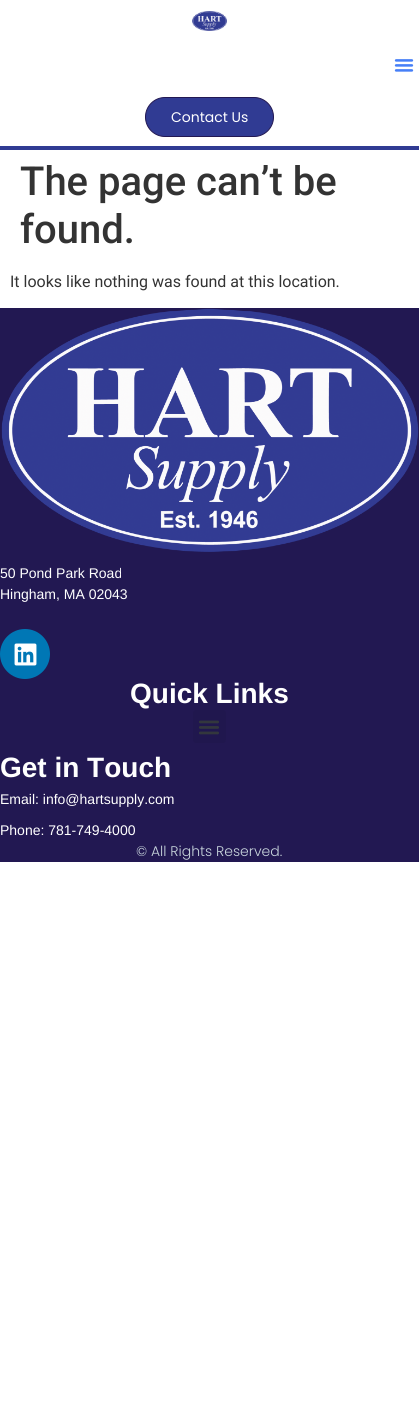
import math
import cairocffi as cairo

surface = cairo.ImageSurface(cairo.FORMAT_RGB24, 419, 1423)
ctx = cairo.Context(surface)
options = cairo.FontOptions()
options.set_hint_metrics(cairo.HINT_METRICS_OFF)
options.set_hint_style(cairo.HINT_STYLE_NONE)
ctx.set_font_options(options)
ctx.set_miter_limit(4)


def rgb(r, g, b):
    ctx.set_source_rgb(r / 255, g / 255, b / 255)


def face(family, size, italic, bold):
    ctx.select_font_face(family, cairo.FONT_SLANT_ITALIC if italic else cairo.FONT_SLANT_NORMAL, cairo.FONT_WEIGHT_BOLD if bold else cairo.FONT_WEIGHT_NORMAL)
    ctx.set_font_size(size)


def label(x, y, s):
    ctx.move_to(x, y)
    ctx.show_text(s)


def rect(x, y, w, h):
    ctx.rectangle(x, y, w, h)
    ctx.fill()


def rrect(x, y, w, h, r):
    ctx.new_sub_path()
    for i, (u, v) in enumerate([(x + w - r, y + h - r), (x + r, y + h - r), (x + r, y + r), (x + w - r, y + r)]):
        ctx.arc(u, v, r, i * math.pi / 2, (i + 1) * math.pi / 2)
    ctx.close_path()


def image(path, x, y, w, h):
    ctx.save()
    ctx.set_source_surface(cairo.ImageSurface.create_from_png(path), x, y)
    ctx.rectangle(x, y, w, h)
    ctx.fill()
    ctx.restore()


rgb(255, 255, 255)
ctx.paint()
rgb(48, 59, 147)
rect(0, 146, 419, 4)
image('image0.png', 192, 11, 35, 20)
image('image1.png', 394, 59, 20, 13)
rrect(145.5, 97.5, 128, 39, 19.5)
ctx.fill_preserve()
rgb(34, 24, 82)
ctx.set_line_width(1)
ctx.stroke()
face('Poppins', 14, 0, 0)
rgb(255, 255, 255)
label(171, 122, 'Contact Us')
face('Roboto Medium', 40, 0, 0)
rgb(51, 51, 51)
label(20, 195, 'The page can’t be')
label(20, 243, 'found.')
face('Roboto', 16, 0, 0)
label(10, 287, 'It looks like nothing was found at this location.')
rgb(34, 24, 82)
rect(0, 308, 419, 554)
image('image2.png', 1, 308, 418, 244)
face('Liberation Sans', 14, 0, 0)
rgb(255, 255, 255)
label(0, 578, '50 Pond Park Road')
label(0, 599, 'Hingham, MA 02043')
rgb(0, 119, 181)
ctx.new_path()
ctx.arc(25, 654, 25, 0, 2 * math.pi)
ctx.fill()
image('image3.png', 14, 643, 23, 23)
face('Liberation Sans', 28, 0, 1)
rgb(255, 255, 255)
label(130, 703, 'Quick Links')
rgb(32, 23, 78)
rrect(193, 710, 33, 33, 3)
ctx.fill()
image('image4.png', 199, 720, 20, 15)
rgb(255, 255, 255)
label(0, 777, 'Get in Touch')
face('Liberation Sans', 14, 0, 0)
label(0, 804, 'Email: info@hartsupply.com')
label(0, 835, 'Phone: 781-749-4000')
face('Poppins Light', 14, 0, 0)
rgb(200, 213, 220)
label(136, 856, '© All Rights Reserved.')
surface.write_to_png('render.png')
